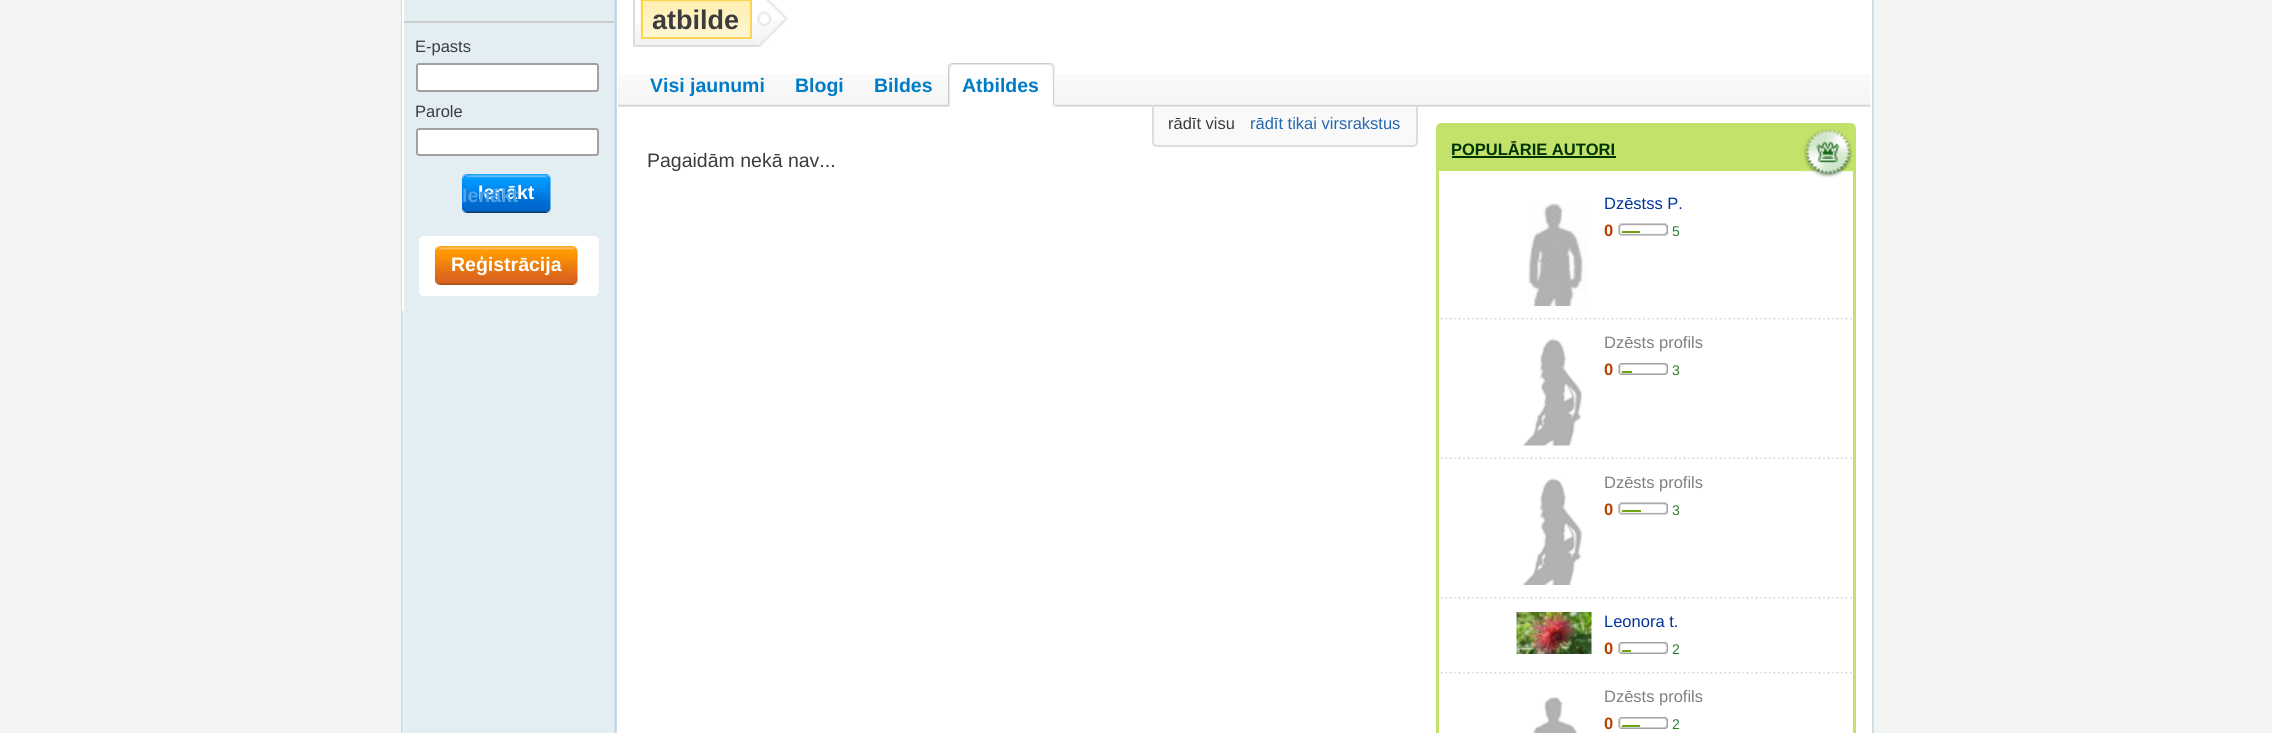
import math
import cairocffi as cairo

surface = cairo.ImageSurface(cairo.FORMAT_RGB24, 2272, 733)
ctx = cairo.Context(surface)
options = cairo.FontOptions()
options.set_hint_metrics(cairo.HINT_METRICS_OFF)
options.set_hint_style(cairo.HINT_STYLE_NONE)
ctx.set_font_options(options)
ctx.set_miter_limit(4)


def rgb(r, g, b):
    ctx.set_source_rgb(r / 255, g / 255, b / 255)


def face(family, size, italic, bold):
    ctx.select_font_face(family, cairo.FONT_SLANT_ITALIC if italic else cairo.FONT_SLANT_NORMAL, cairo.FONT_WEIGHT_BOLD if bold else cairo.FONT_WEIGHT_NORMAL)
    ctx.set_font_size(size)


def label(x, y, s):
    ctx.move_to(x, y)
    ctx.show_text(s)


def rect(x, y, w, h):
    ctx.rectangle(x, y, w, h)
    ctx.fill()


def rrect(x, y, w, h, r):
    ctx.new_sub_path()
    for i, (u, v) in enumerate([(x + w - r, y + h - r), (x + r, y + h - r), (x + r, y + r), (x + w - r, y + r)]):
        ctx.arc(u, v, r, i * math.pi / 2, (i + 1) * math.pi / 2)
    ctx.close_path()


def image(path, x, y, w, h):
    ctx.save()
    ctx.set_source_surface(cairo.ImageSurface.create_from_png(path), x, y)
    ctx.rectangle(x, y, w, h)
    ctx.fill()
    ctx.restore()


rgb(243, 244, 244)
ctx.paint()
rgb(255, 255, 255)
rect(617, 0, 1255, 733)
image('image0.png', 403, 0, 213, 733)
rgb(206, 220, 231)
rect(1872, 0, 2, 733)
rect(401, 0, 2, 733)
rgb(255, 255, 255)
rect(402, 0, 2, 311)
rgb(227, 238, 243)
ctx.new_path()
ctx.move_to(404, 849)
ctx.line_to(404, -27)
ctx.line_to(614, -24)
ctx.line_to(614, 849)
ctx.close_path()
ctx.fill()
rgb(204, 204, 204)
rect(404, 21, 210, 2)
face('Liberation Sans', 16.5, 0, 0)
rgb(60, 60, 62)
label(415, 52, 'E-pasts')
rgb(255, 255, 255)
rrect(417, 64, 181, 27, 2)
ctx.fill_preserve()
rgb(160, 160, 160)
ctx.stroke()
rgb(60, 60, 62)
label(415, 117, 'Parole')
rgb(255, 255, 255)
rrect(417, 129, 181, 26, 2)
ctx.fill_preserve()
rgb(160, 160, 160)
ctx.stroke()
image('image1.png', 546, 174, 5, 39)
image('image2.png', 462, 174, 84, 39)
face('Liberation Sans', 19.5, 0, 1)
rgb(255, 255, 255)
label(478, 199, 'Ienākt')
rgb(79, 162, 232)
label(462, 202, 'Ienākt')
rgb(255, 255, 255)
rrect(419, 236, 180, 60, 5)
ctx.fill()
image('image3.png', 573, 246, 5, 39)
image('image4.png', 435, 246, 138, 39)
label(451, 271, 'Reģistrācija')
rgb(205, 222, 231)
rect(616, 0, 1, 733)
image('image5.png', 635, 23, 123, 22)
rgb(221, 221, 221)
rect(633, 45, 125, 2)
rect(633, 0, 2, 47)
image('image6.png', 640, 0, 110, 39)
ctx.rectangle(642, 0, 109, 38)
rgb(253, 212, 79)
ctx.stroke()
face('Liberation Sans', 27, 0, 1)
rgb(60, 60, 62)
label(652, 29, 'atbilde')
image('image7.png', 757, 0, 31, 47)
rgb(249, 249, 249)
ctx.new_path()
ctx.move_to(1152, 107)
ctx.line_to(1418, 107)
ctx.line_to(1418, 142)
ctx.curve_to(1418, 145, 1416, 147, 1413, 147)
ctx.line_to(1157, 147)
ctx.curve_to(1154, 147, 1152, 145, 1152, 142)
ctx.close_path()
ctx.fill()
ctx.save()
ctx.rectangle(618, 107, 818, 94)
ctx.clip()
rrect(1153, 103, 264, 43, 4)
rgb(221, 221, 221)
ctx.stroke()
ctx.restore()
image('image8.png', 618, 74, 1253, 33)
face('Liberation Sans', 19.5, 0, 1)
rgb(0, 124, 198)
label(650, 92, 'Visi jaunumi')
label(795, 92, 'Blogi')
label(874, 92, 'Bildes')
rgb(255, 255, 255)
rect(948, 74, 107, 33)
image('image9.png', 948, 63, 107, 44)
image('image10.png', 948, 63, 5, 44)
rgb(0, 124, 198)
label(962, 92, 'Atbildes')
face('Liberation Sans', 16.5, 0, 0)
rgb(60, 60, 62)
label(1168, 129, 'rādīt visu')
rgb(36, 105, 175)
label(1250, 129, 'rādīt tikai virsrakstus')
face('Liberation Sans', 19.5, 0, 0)
rgb(60, 60, 62)
label(647, 167, 'Pagaidām nekā nav...')
rrect(1437.5, 124.5, 417, 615, 3.5)
rgb(195, 226, 106)
ctx.set_line_width(3)
ctx.stroke()
rect(1439, 126, 414, 45)
face('Liberation Sans', 16.5, 0, 1)
rgb(0, 51, 4)
label(1451, 155, 'POPULĀRIE AUTORI')
rect(1452, 156, 164, 2)
image('image11.png', 1803, 129, 50, 49)
image('image12.png', 1528, 203, 60, 103)
face('Liberation Sans', 16.5, 0, 0)
rgb(0, 51, 153)
label(1604, 209, 'Dzēstss P.')
face('Liberation Sans', 16.5, 0, 1)
rgb(185, 63, 0)
label(1604, 236, '0')
image('image13.png', 1618, 223, 50, 13)
rgb(113, 163, 18)
rect(1622, 231, 18, 2)
face('Liberation Sans', 14, 0, 0)
rgb(44, 124, 47)
label(1672, 236, '5')
image('image14.png', 1440, 318, 412, 2)
image('image15.png', 1522, 338, 61, 108)
face('Liberation Sans', 16.5, 0, 0)
rgb(127, 127, 127)
label(1604, 348, 'Dzēsts profils')
face('Liberation Sans', 16.5, 0, 1)
rgb(185, 63, 0)
label(1604, 375, '0')
image('image16.png', 1618, 363, 50, 12)
rgb(113, 163, 18)
rect(1622, 371, 10, 2)
face('Liberation Sans', 14, 0, 0)
rgb(44, 124, 47)
label(1672, 375, '3')
image('image17.png', 1440, 457, 412, 2)
image('image18.png', 1522, 478, 61, 107)
face('Liberation Sans', 16.5, 0, 0)
rgb(127, 127, 127)
label(1604, 488, 'Dzēsts profils')
face('Liberation Sans', 16.5, 0, 1)
rgb(185, 63, 0)
label(1604, 515, '0')
image('image13.png', 1618, 502, 50, 13)
rgb(113, 163, 18)
rect(1622, 510, 19, 2)
face('Liberation Sans', 14, 0, 0)
rgb(44, 124, 47)
label(1672, 515, '3')
image('image14.png', 1440, 597, 412, 2)
image('image19.png', 1516, 612, 76, 42)
face('Liberation Sans', 16.5, 0, 0)
rgb(0, 51, 153)
label(1604, 627, 'Leonora t.')
face('Liberation Sans', 16.5, 0, 1)
rgb(185, 63, 0)
label(1604, 654, '0')
image('image16.png', 1618, 642, 50, 12)
rgb(113, 163, 18)
rect(1622, 650, 9, 2)
face('Liberation Sans', 14, 0, 0)
rgb(44, 124, 47)
label(1672, 654, '2')
image('image14.png', 1440, 672, 412, 2)
image('image20.png', 1532, 697, 45, 36)
face('Liberation Sans', 16.5, 0, 0)
rgb(127, 127, 127)
label(1604, 702, 'Dzēsts profils')
face('Liberation Sans', 16.5, 0, 1)
rgb(185, 63, 0)
label(1604, 729, '0')
image('image16.png', 1618, 717, 50, 12)
rgb(113, 163, 18)
rect(1622, 725, 18, 2)
face('Liberation Sans', 14, 0, 0)
rgb(44, 124, 47)
label(1672, 729, '2')
surface.write_to_png('render.png')
